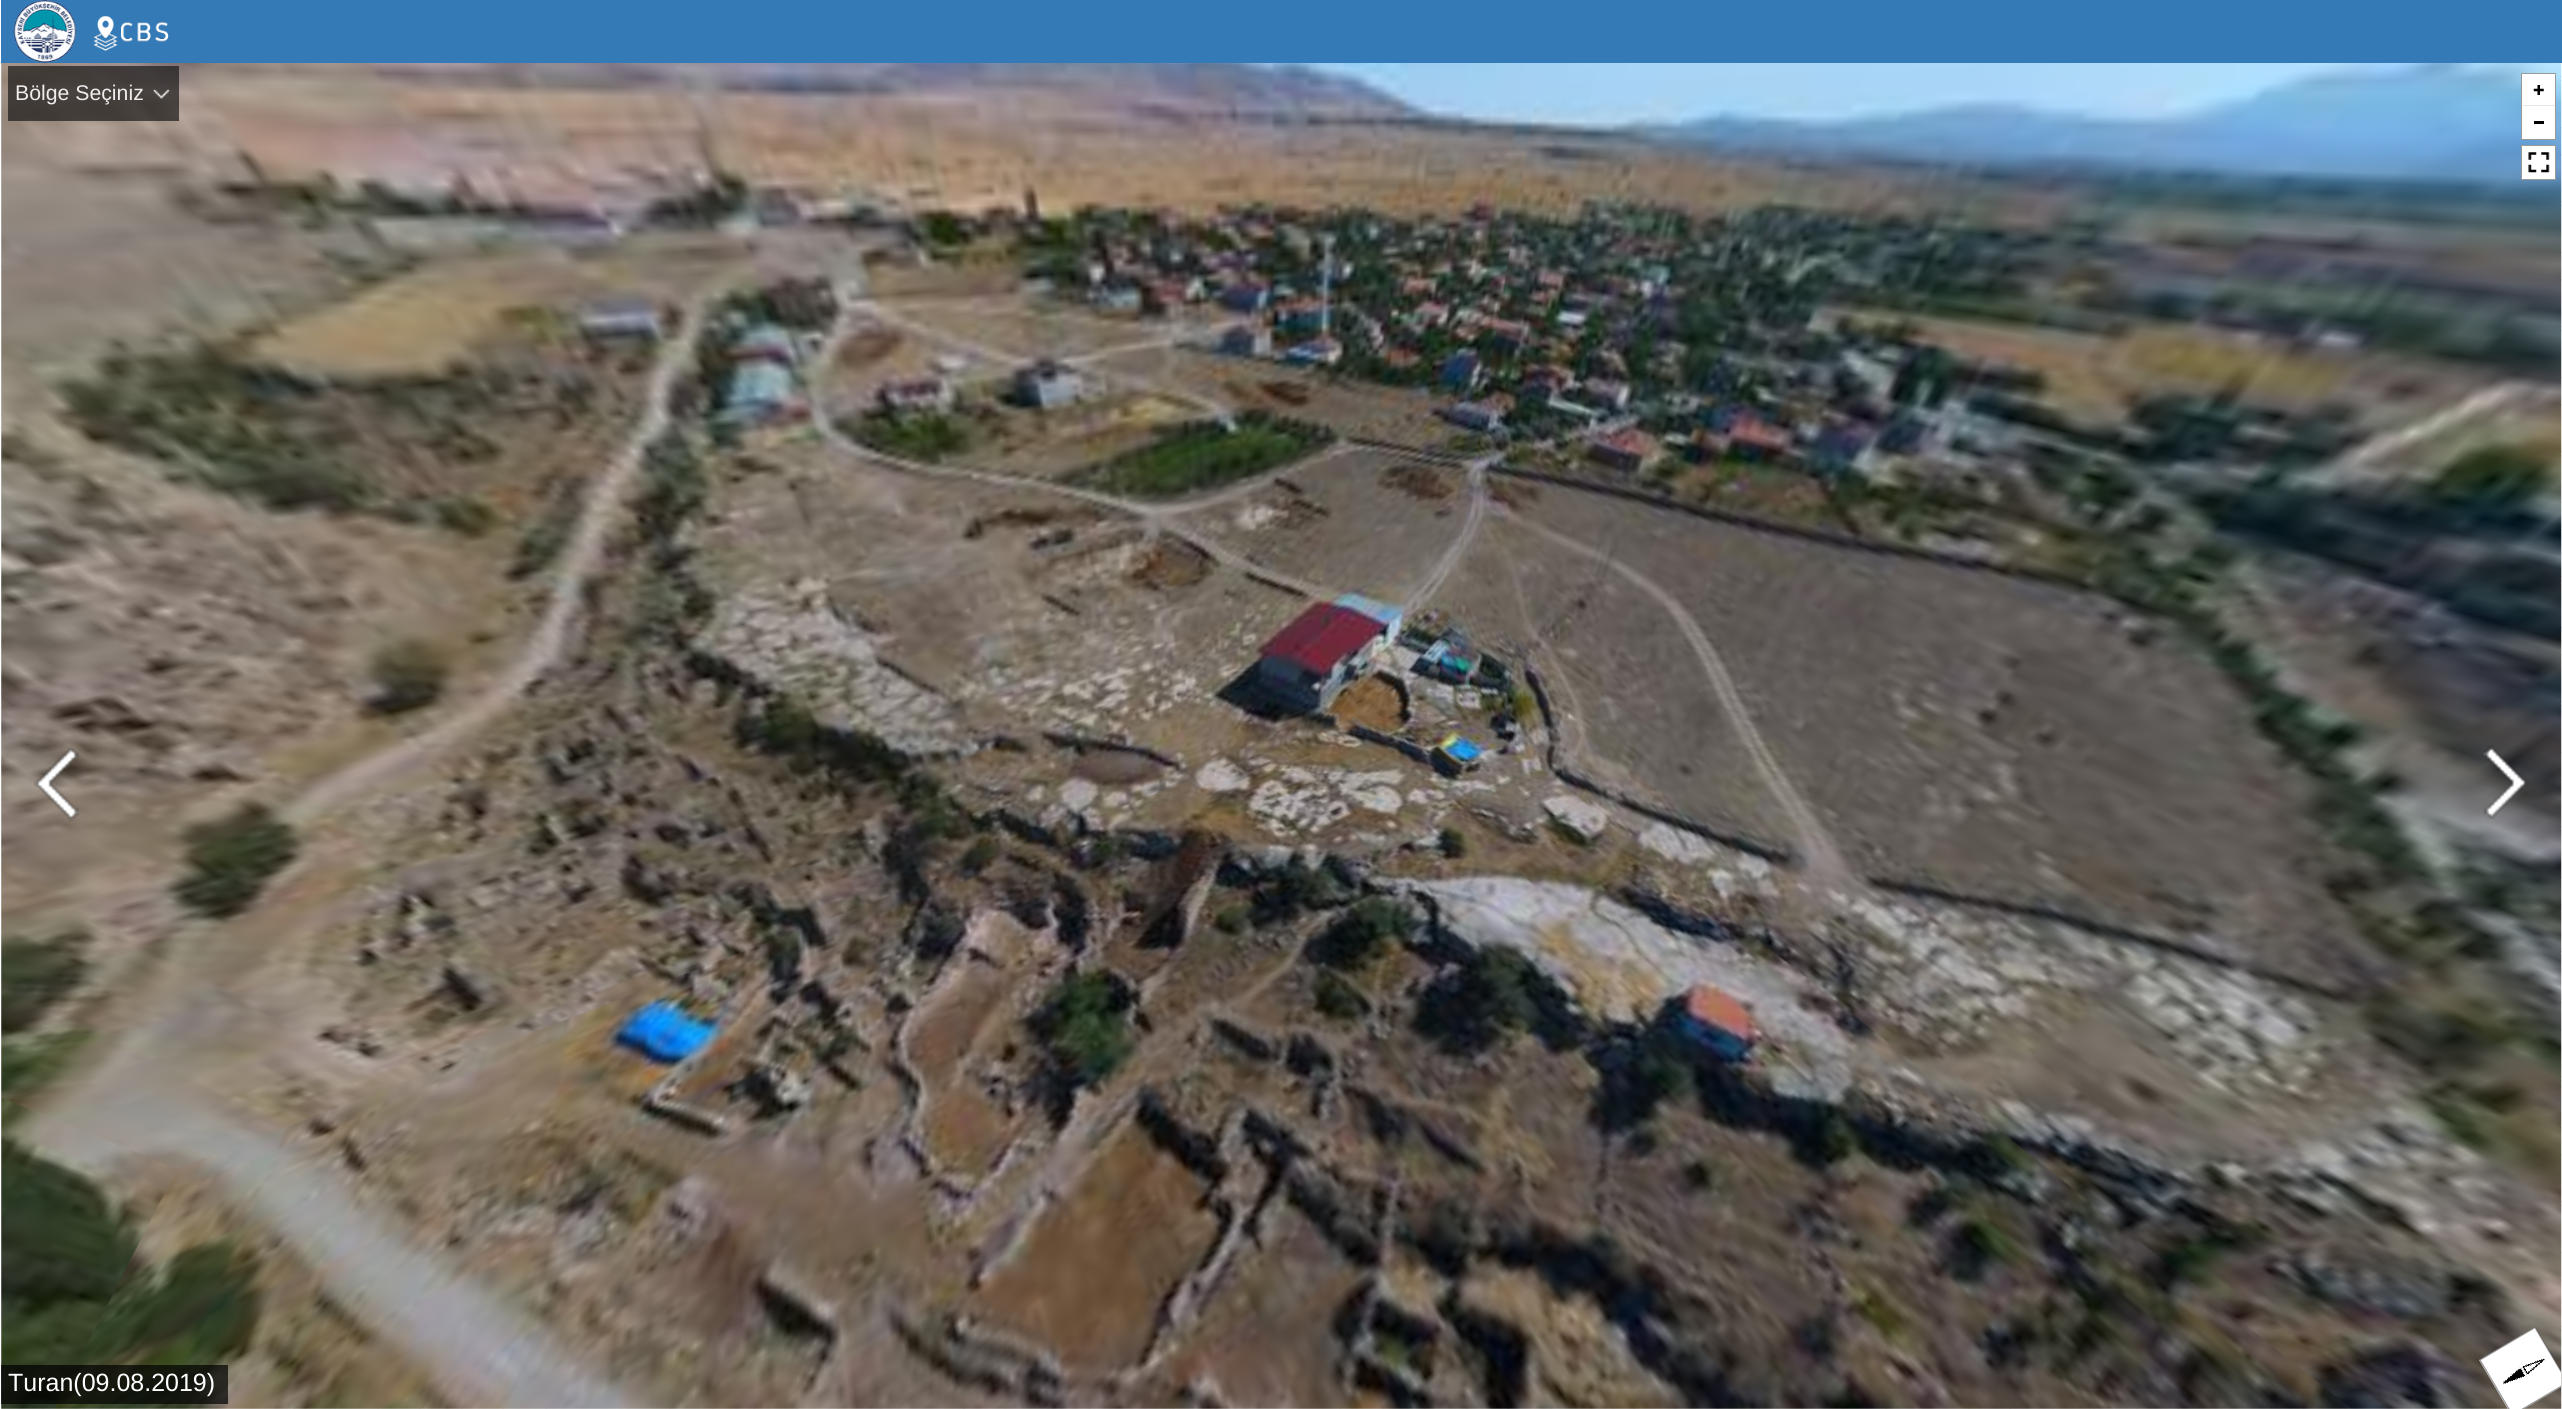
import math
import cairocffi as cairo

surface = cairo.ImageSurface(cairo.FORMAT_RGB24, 2562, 1409)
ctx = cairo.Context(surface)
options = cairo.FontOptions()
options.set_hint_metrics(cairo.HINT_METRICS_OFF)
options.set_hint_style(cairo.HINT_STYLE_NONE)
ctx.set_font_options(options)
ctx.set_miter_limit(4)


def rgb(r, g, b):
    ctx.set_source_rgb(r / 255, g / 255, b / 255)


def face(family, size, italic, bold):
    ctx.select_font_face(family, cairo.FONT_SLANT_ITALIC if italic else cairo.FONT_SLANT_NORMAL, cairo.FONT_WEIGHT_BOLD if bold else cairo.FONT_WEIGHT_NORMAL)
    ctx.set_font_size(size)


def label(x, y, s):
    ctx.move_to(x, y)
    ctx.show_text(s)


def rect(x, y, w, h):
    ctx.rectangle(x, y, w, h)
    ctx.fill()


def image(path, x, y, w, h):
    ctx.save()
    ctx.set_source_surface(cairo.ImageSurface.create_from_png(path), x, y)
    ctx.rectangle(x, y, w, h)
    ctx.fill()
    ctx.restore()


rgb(255, 255, 255)
ctx.paint()
rgb(238, 238, 238)
rect(0, 61, 1, 1)
rgb(51, 122, 183)
rect(1, 0, 2561, 63)
image('image0.png', 13, 0, 64, 63)
image('image1.png', 93, 16, 76, 35)
rgb(244, 244, 244)
rect(1, 63, 2560, 1346)
image('image5.png', 1, 63, 2561, 1346)
image('image6.png', 1, 63, 2561, 1346)
ctx.set_source_rgba(0.067, 0.067, 0.067, 0.65)
rect(8, 66, 171, 55)
face('Liberation Sans', 21.25, 0, 0)
rgb(238, 236, 236)
label(15, 100, 'Bölge Seçiniz')
image('image2.png', 153, 88, 17, 12)
image('image3.png', 34, 747, 45, 75)
image('image4.png', 2483, 745, 46, 74)
rgb(255, 255, 255)
ctx.rectangle(2521.5, 73.5, 34, 66)
ctx.fill_preserve()
rgb(153, 153, 153)
ctx.set_line_width(1)
ctx.stroke()
image('image7.png', 2533, 85, 11, 10)
rgb(0, 0, 0)
rect(2534, 121, 10, 3)
rgb(230, 230, 230)
rect(2523, 105, 32, 1)
rgb(255, 255, 255)
rect(2522, 146, 33, 33)
image('image8.png', 2528, 152, 22, 21)
ctx.rectangle(2521.5, 145.5, 34, 34)
rgb(153, 153, 153)
ctx.stroke()
ctx.set_source_rgba(0, 0, 0, 0.7)
rect(1, 1365, 227, 39)
face('Liberation Sans', 25, 0, 0)
rgb(255, 255, 255)
label(8, 1391, 'Turan(09.08.2019)')
ctx.save()
ctx.rectangle(1, 63, 2560, 1346)
ctx.clip()
ctx.new_path()
ctx.move_to(2512, 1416)
ctx.line_to(2479, 1360)
ctx.line_to(2535, 1327)
ctx.line_to(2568, 1383)
ctx.close_path()
ctx.fill()
ctx.restore()
image('image9.png', 2502, 1358, 43, 27)
ctx.save()
ctx.rectangle(1, 63, 2560, 1346)
ctx.clip()
ctx.new_path()
ctx.move_to(2512.5, 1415)
ctx.line_to(2480, 1360)
ctx.line_to(2535, 1327.5)
ctx.line_to(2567.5, 1382.5)
ctx.close_path()
ctx.set_source_rgba(0, 0, 0, 0.4)
ctx.set_line_width(1.3)
ctx.stroke()
ctx.restore()
surface.write_to_png('render.png')
